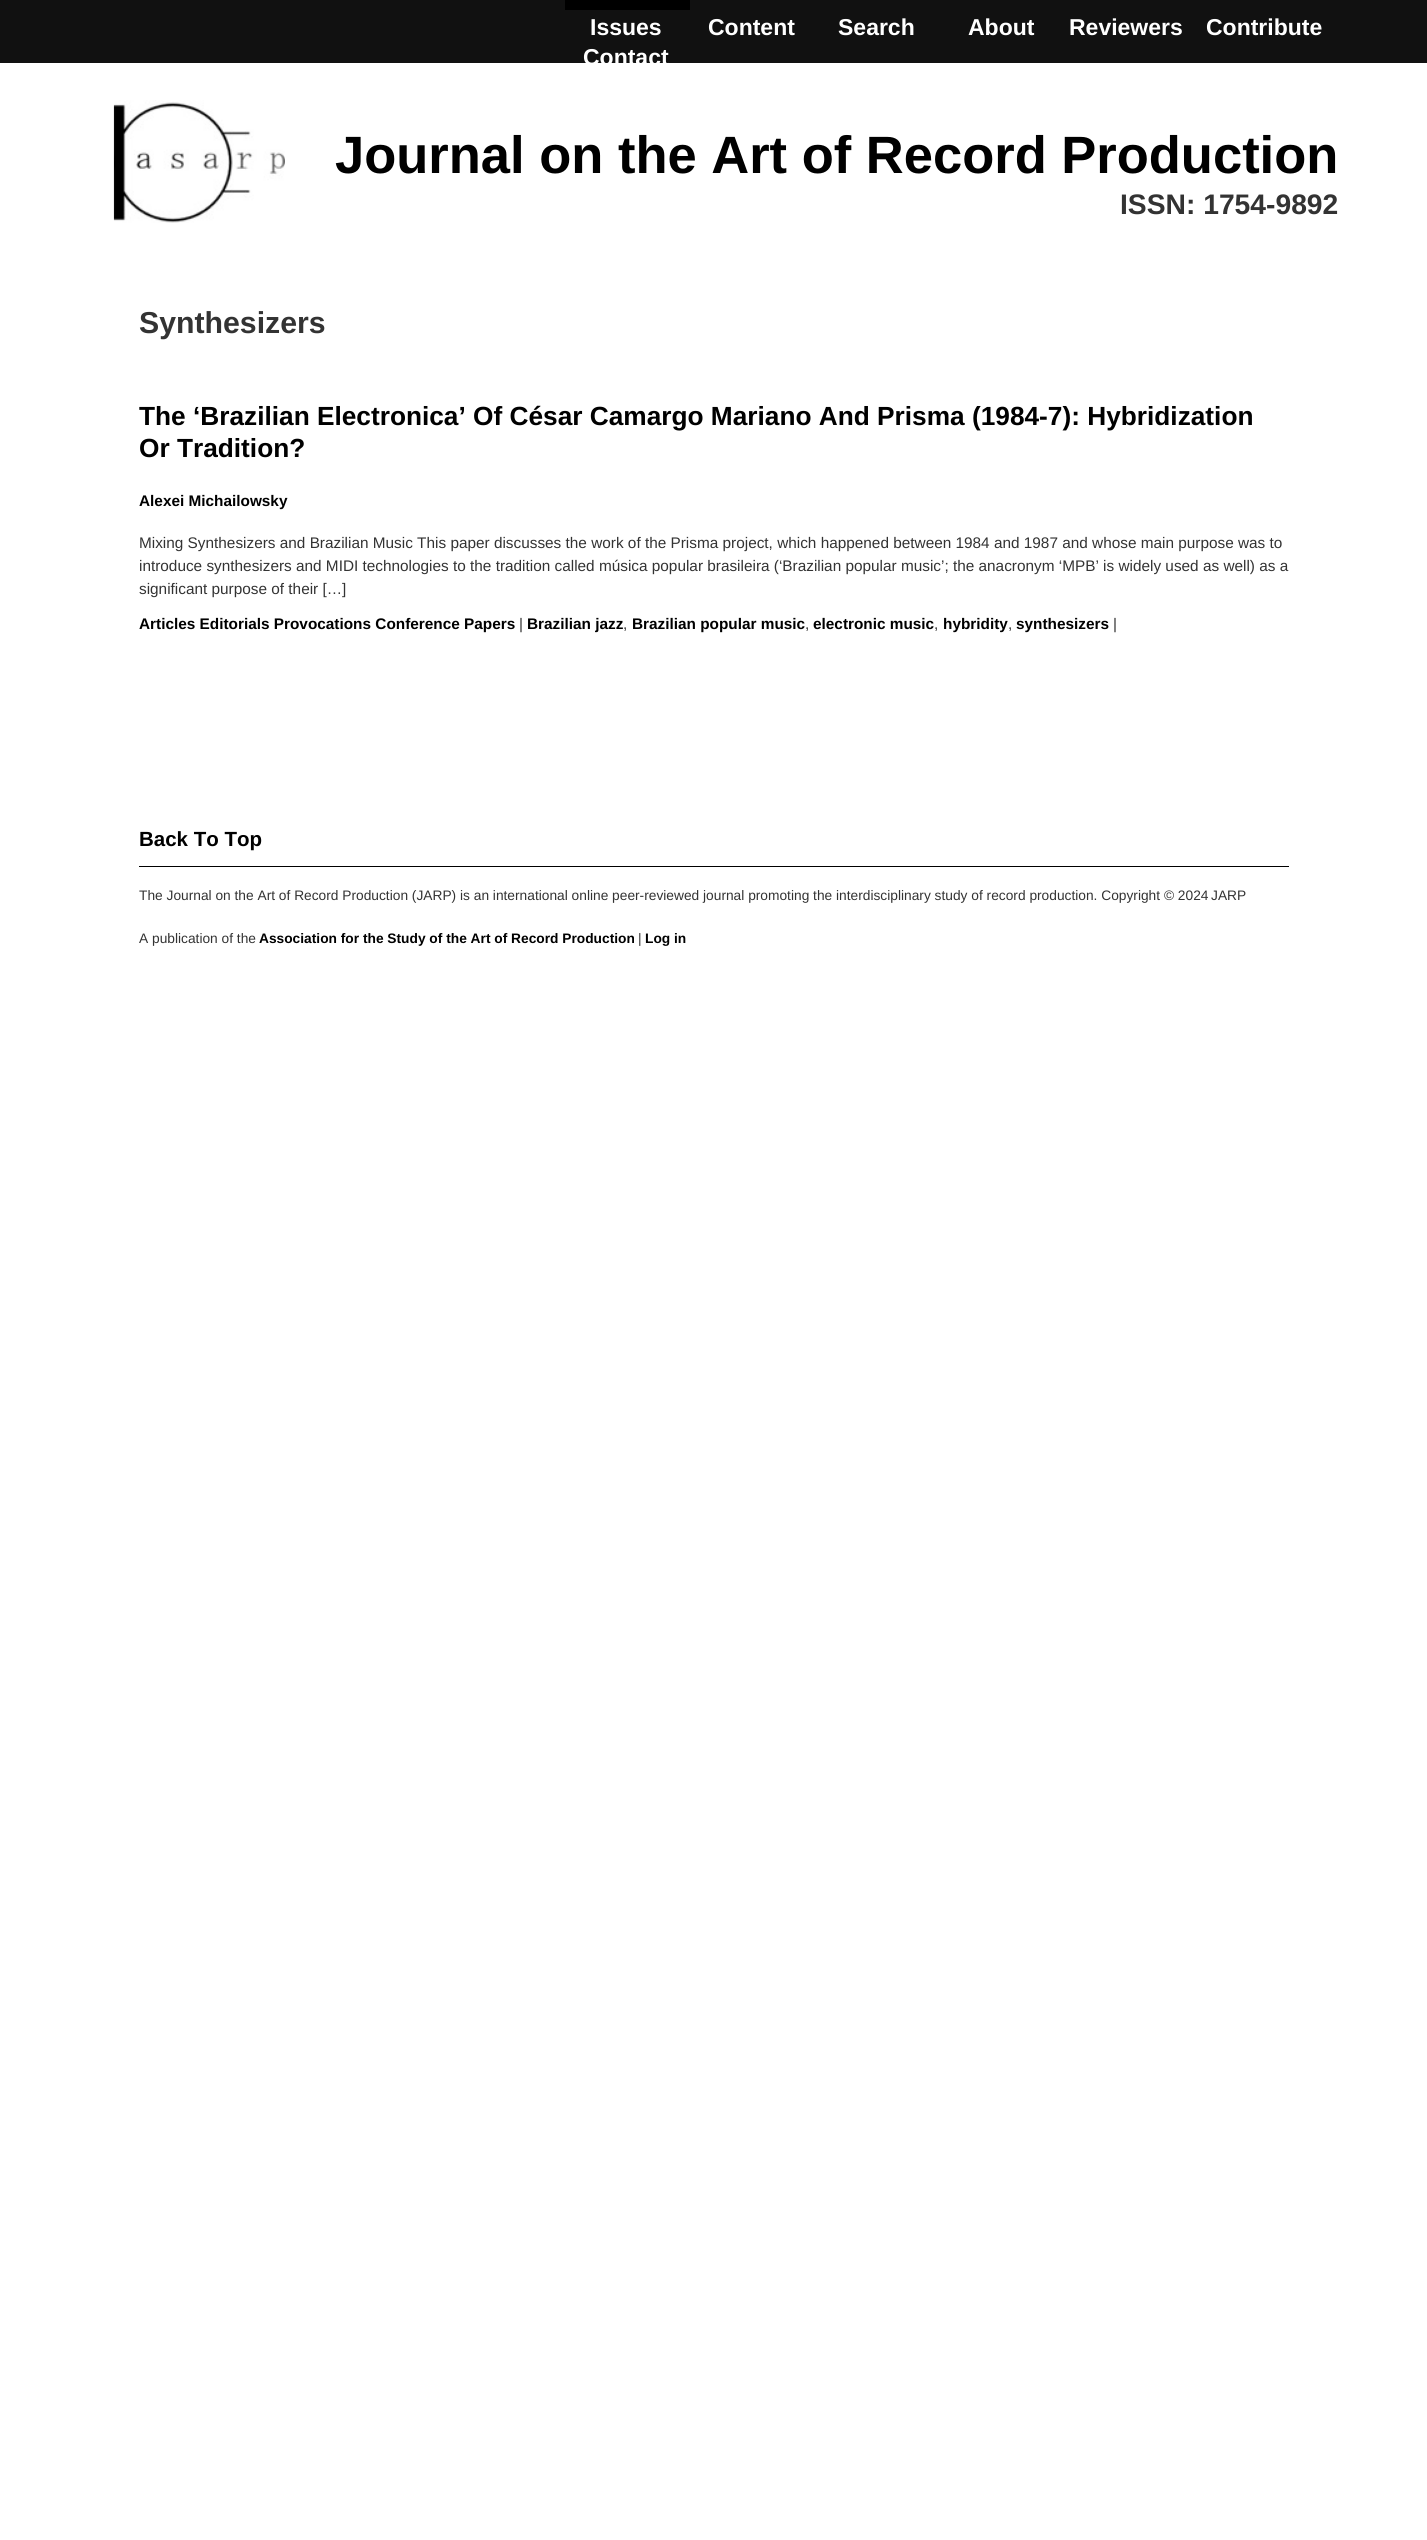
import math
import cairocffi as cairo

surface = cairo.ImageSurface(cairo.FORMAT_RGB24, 1427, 2540)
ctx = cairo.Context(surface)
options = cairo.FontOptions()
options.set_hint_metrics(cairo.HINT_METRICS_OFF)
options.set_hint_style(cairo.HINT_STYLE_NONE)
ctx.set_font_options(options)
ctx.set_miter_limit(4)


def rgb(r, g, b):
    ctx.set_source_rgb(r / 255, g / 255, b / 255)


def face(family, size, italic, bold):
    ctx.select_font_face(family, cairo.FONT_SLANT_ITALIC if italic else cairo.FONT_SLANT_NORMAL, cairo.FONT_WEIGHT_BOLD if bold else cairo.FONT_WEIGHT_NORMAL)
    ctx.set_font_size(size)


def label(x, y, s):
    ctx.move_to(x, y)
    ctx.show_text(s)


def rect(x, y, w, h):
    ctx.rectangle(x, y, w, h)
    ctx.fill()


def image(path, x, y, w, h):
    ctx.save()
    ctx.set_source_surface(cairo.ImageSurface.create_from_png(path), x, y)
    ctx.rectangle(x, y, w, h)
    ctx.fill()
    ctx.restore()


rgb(255, 255, 255)
ctx.paint()
rgb(17, 17, 17)
rect(0, 0, 1427, 63)
rgb(0, 0, 0)
rect(565, 0, 125, 10)
face('Liberation Sans', 23, 0, 1)
rgb(255, 255, 255)
label(590, 35, 'Issues')
label(708, 35, 'Content')
label(838, 35, 'Search')
label(968, 35, 'About')
label(1069, 35, 'Reviewers')
label(1206, 35, 'Contribute')
label(583, 65, 'Contact')
image('image0.png', 113, 100, 172, 123)
face('Liberation Sans', 52.5, 0, 1)
rgb(0, 0, 0)
label(335, 173, 'Journal on the Art of Record Production')
face('Liberation Sans', 28.25, 0, 1)
rgb(51, 51, 51)
label(1120, 214, 'ISSN: 1754-9892')
face('Liberation Sans', 30.25, 0, 1)
label(139, 333, 'Synthesizers')
face('Liberation Sans', 26.25, 0, 1)
rgb(0, 0, 0)
label(139, 425, 'The ‘Brazilian Electronica’ Of César Camargo Mariano And Prisma (1984-7): Hybridization')
label(139, 457, 'Or Tradition?')
face('Liberation Sans', 15.35, 0, 1)
label(139, 506, 'Alexei Michailowsky')
face('Liberation Sans', 15.35, 0, 0)
rgb(51, 51, 51)
label(139, 548, 'Mixing Synthesizers and Brazilian Music This paper discusses the work of the Prisma project, which happened between 1984 and 1987 and whose main purpose was to')
label(139, 571, 'introduce synthesizers and MIDI technologies to the tradition called música popular brasileira (‘Brazilian popular music’; the anacronym ‘MPB’ is widely used as well) as a')
label(139, 594, 'significant purpose of their […]')
face('Liberation Sans', 15.35, 0, 1)
rgb(0, 0, 0)
label(139, 629, 'Articles Editorials Provocations Conference Papers')
face('Liberation Sans', 15.35, 0, 0)
rgb(51, 51, 51)
label(519, 629, '|')
face('Liberation Sans', 15.35, 0, 1)
rgb(0, 0, 0)
label(527, 629, 'Brazilian jazz')
face('Liberation Sans', 15.35, 0, 0)
rgb(51, 51, 51)
label(623, 629, ',')
face('Liberation Sans', 15.35, 0, 1)
rgb(0, 0, 0)
label(632, 629, 'Brazilian popular music')
face('Liberation Sans', 15.35, 0, 0)
rgb(51, 51, 51)
label(805, 629, ',')
face('Liberation Sans', 15.35, 0, 1)
rgb(0, 0, 0)
label(813, 629, 'electronic music')
face('Liberation Sans', 15.35, 0, 0)
rgb(51, 51, 51)
label(934, 629, ',')
face('Liberation Sans', 15.35, 0, 1)
rgb(0, 0, 0)
label(943, 629, 'hybridity')
face('Liberation Sans', 15.35, 0, 0)
rgb(51, 51, 51)
label(1008, 629, ',')
face('Liberation Sans', 15.35, 0, 1)
rgb(0, 0, 0)
label(1016, 629, 'synthesizers')
face('Liberation Sans', 15.35, 0, 0)
rgb(51, 51, 51)
label(1113, 629, '|')
face('Liberation Sans', 20.5, 0, 1)
rgb(0, 0, 0)
label(139, 846, 'Back To Top')
rect(139, 866, 1150, 1)
face('Liberation Sans', 13.75, 0, 0)
rgb(51, 51, 51)
label(139, 900, 'The Journal on the Art of Record Production (JARP) is an international online peer-reviewed journal promoting the interdisciplinary study of record production. Copyright © 2024')
label(1211, 900, 'JARP')
label(139, 943, 'A publication of the')
face('Liberation Sans', 13.75, 0, 1)
rgb(0, 0, 0)
label(259, 943, 'Association for the Study of the Art of Record Production')
face('Liberation Sans', 13.75, 0, 0)
rgb(51, 51, 51)
label(638, 943, '|')
face('Liberation Sans', 13.75, 0, 1)
rgb(0, 0, 0)
label(645, 943, 'Log in')
surface.write_to_png('render.png')
